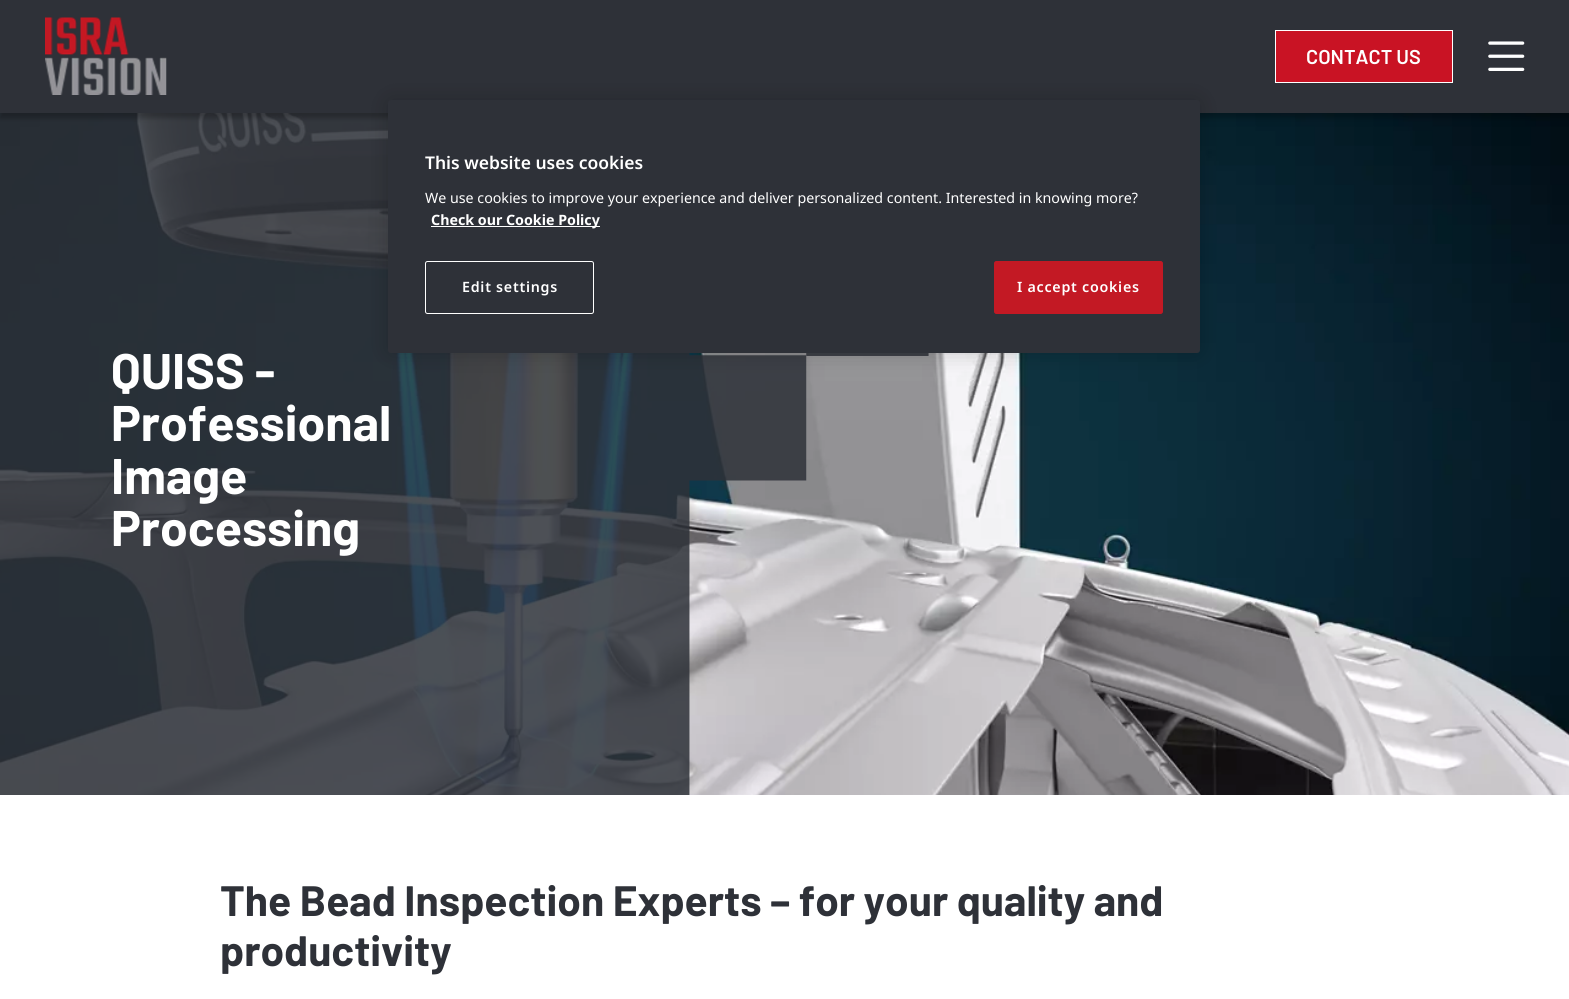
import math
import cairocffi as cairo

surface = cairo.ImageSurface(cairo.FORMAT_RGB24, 1569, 999)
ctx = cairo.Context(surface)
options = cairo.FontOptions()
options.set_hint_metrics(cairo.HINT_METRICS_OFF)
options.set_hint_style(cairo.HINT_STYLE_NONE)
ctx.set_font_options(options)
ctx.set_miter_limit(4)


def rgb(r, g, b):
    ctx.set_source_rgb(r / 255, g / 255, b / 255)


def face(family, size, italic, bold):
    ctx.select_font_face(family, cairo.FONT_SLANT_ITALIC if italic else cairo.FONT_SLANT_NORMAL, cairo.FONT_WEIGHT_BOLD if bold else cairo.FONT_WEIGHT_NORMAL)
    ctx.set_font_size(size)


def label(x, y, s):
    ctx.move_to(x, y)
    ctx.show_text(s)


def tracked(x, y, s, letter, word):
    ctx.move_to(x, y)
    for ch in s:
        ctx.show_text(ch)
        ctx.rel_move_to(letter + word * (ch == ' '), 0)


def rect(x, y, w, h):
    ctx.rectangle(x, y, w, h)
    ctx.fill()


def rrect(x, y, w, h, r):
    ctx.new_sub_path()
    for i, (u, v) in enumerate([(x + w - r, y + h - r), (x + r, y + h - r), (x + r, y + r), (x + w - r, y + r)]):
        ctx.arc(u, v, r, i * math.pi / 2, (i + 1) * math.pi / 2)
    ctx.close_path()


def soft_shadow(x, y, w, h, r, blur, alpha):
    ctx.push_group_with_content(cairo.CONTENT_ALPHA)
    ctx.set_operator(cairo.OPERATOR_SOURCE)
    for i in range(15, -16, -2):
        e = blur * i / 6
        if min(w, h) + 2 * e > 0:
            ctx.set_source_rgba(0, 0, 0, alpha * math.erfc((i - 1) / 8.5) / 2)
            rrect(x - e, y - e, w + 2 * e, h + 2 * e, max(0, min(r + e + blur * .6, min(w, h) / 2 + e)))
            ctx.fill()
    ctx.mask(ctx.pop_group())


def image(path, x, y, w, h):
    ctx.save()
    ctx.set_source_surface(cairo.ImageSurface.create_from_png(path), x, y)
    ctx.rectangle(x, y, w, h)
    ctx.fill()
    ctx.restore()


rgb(255, 255, 255)
ctx.paint()
image('image2.png', 0, 113, 1569, 682)
image('image3.png', 0, 113, 929, 682)
rgb(0, 0, 0)
soft_shadow(0, 5, 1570, 113, 0, 2.5, 0.25)
rgb(46, 49, 56)
rect(0, 0, 1569, 113)
image('image0.png', 45, 17, 122, 78)
rgb(201, 19, 36)
ctx.rectangle(1275.5, 30.5, 177, 52)
ctx.fill_preserve()
rgb(255, 255, 255)
ctx.set_line_width(1)
ctx.stroke()
face('Barlow SemiBold', 20, 0, 0)
label(1306, 64, 'CONTACT US')
image('image1.png', 1488, 41, 37, 30)
rgb(0, 0, 0)
soft_shadow(388, 100, 812, 253, 3, 11, 0.2)
rgb(46, 49, 56)
rrect(388, 100, 812, 253, 3)
ctx.fill()
face('Noto Sans SemiBold', 17.5, 0, 0)
rgb(255, 255, 255)
label(425, 169, 'This website uses cookies')
face('Noto Sans', 14.23, 0, 0)
label(425, 203, 'We use cookies to improve your experience and deliver personalized content. Interested in knowing more?')
rect(431, 226, 169, 1)
face('Noto Sans', 14.23, 0, 1)
label(431, 225, 'Check our Cookie Policy')
rrect(425.5, 261.5, 168, 52, 2)
ctx.stroke()
face('Noto Sans SemiBold', 14.23, 0, 0)
tracked(462, 292, 'Edit settings', 0.75, 0)
rgb(195, 25, 36)
rrect(994.5, 261.5, 168, 52, 2)
ctx.fill_preserve()
ctx.stroke()
rgb(255, 255, 255)
tracked(1017, 292, 'I accept cookies', 0.75, 0)
face('Barlow', 50, 0, 1)
label(111, 389, 'QUISS -')
label(111, 441, 'Professional')
label(111, 494, 'Image')
label(111, 546, 'Processing')
face('Barlow', 42.5, 0, 1)
rgb(46, 49, 56)
label(220, 916, 'The Bead Inspection Experts – for your quality and')
label(220, 966, 'productivity')
surface.write_to_png('render.png')
